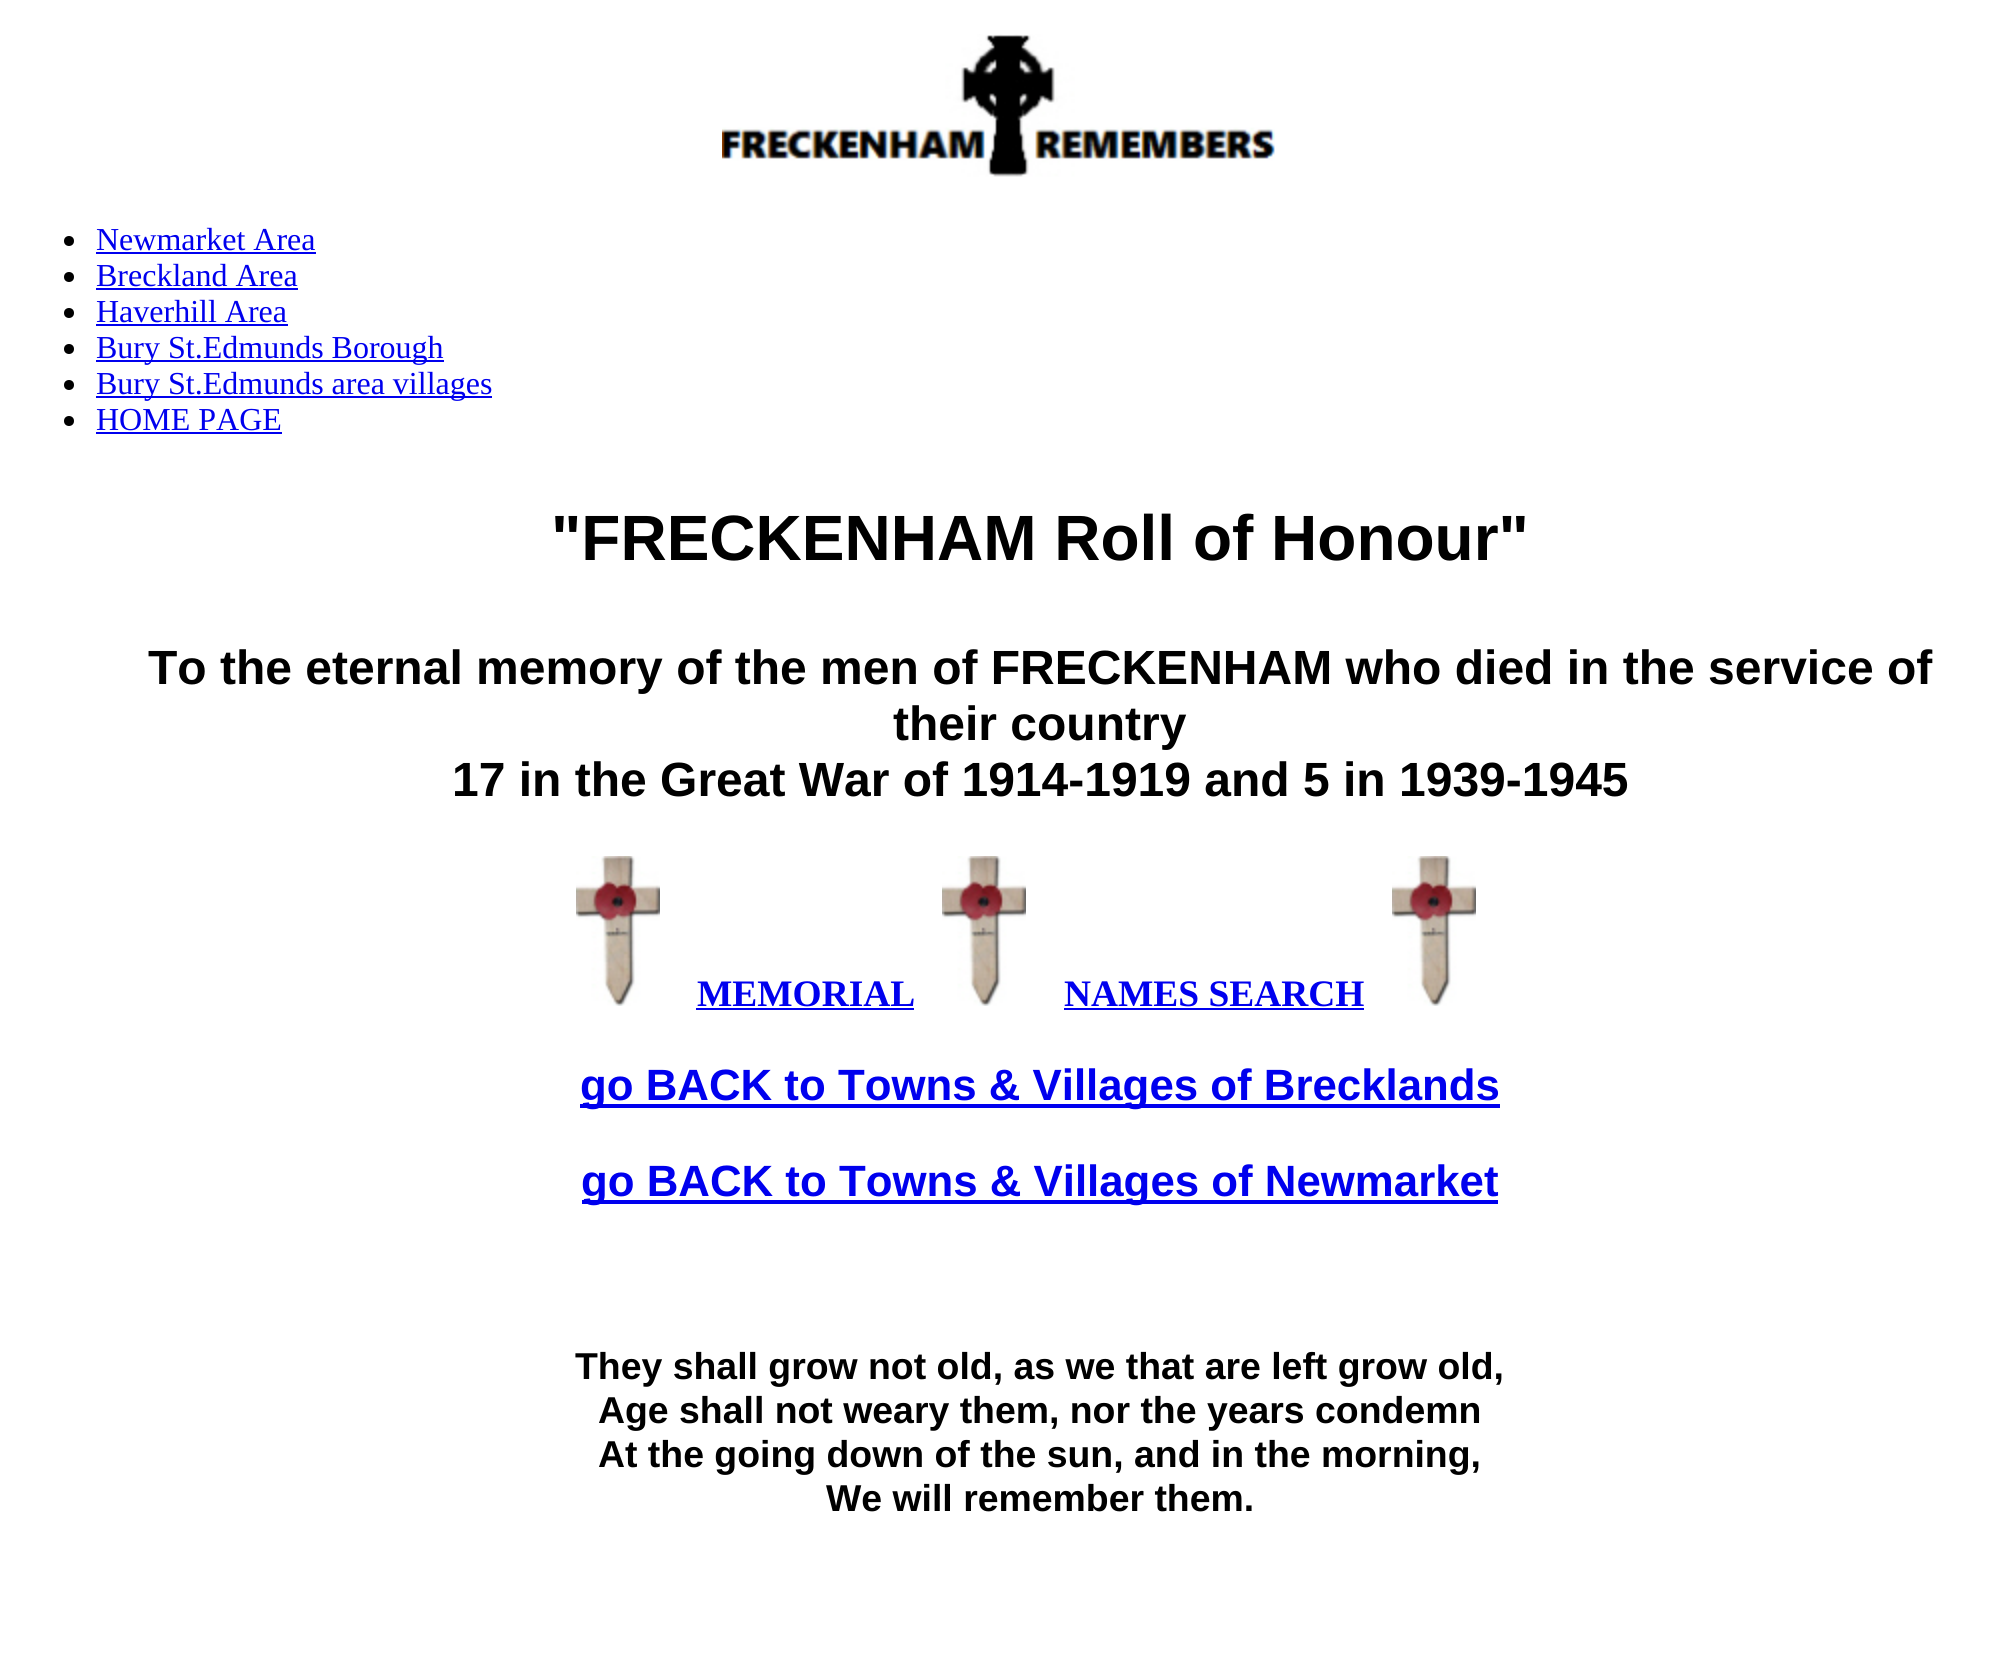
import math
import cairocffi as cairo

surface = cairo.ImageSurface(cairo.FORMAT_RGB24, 2000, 1654)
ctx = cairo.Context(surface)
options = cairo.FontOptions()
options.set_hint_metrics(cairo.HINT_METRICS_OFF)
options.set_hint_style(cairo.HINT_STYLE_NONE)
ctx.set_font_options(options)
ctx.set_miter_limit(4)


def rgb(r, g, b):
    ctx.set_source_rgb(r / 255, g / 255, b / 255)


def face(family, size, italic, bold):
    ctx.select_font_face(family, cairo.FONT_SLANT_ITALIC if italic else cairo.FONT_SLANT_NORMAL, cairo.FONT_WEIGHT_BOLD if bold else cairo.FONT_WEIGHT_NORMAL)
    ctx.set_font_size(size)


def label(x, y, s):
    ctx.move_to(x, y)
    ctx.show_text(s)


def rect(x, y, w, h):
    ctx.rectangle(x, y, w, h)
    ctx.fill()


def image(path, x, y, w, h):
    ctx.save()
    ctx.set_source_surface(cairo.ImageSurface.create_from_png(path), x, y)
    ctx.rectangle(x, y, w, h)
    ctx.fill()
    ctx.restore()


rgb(255, 255, 255)
ctx.paint()
image('image0.png', 722, 34, 553, 143)
rgb(0, 0, 0)
ctx.arc(69, 241, 5, 0, 2 * math.pi)
ctx.fill()
face('Liberation Serif', 32, 0, 0)
rgb(0, 0, 238)
label(96, 250, 'Newmarket Area')
rect(96, 252, 220, 2)
rgb(0, 0, 0)
ctx.new_path()
ctx.arc(69, 277, 5, 0, 2 * math.pi)
ctx.fill()
rgb(0, 0, 238)
label(96, 286, 'Breckland Area')
rect(96, 288, 202, 2)
rgb(0, 0, 0)
ctx.new_path()
ctx.arc(69, 313, 5, 0, 2 * math.pi)
ctx.fill()
rgb(0, 0, 238)
label(96, 322, 'Haverhill Area')
rect(96, 324, 192, 2)
rgb(0, 0, 0)
ctx.new_path()
ctx.arc(69, 349, 5, 0, 2 * math.pi)
ctx.fill()
rgb(0, 0, 238)
rect(96, 360, 348, 2)
label(96, 358, 'Bury St.Edmunds Borough')
rgb(0, 0, 0)
ctx.new_path()
ctx.arc(69, 385, 5, 0, 2 * math.pi)
ctx.fill()
rgb(0, 0, 238)
rect(96, 396, 396, 2)
label(96, 394, 'Bury St.Edmunds area villages')
rgb(0, 0, 0)
ctx.new_path()
ctx.arc(69, 421, 5, 0, 2 * math.pi)
ctx.fill()
rgb(0, 0, 238)
label(96, 430, 'HOME PAGE')
rect(96, 432, 186, 2)
face('Liberation Sans', 64, 0, 1)
rgb(0, 0, 0)
label(551, 560, '"FRECKENHAM Roll of Honour"')
face('Liberation Sans', 48, 0, 1)
label(148, 684, 'To the eternal memory of the men of FRECKENHAM who died in the service of')
label(893, 740, 'their country')
label(452, 796, '17 in the Great War of 1914-1919 and 5 in 1939-1945')
image('image1.png', 576, 856, 84, 150)
face('Liberation Serif', 37.4, 0, 1)
rgb(0, 0, 238)
label(697, 1006, 'MEMORIAL')
rect(696, 1008, 218, 2)
image('image1.png', 942, 856, 84, 150)
label(1064, 1006, 'NAMES SEARCH')
rect(1064, 1008, 300, 2)
image('image1.png', 1392, 856, 84, 150)
rect(580, 1104, 920, 4)
face('Liberation Sans', 43.8, 0, 1)
label(580, 1100, 'go BACK to Towns & Villages of Brecklands')
rect(582, 1200, 916, 4)
label(581, 1196, 'go BACK to Towns & Villages of Newmarket')
face('Liberation Sans', 37.4, 0, 1)
rgb(0, 0, 0)
label(575, 1379, 'They shall grow not old, as we that are left grow old,')
label(598, 1423, 'Age shall not weary them, nor the years condemn')
label(598, 1467, 'At the going down of the sun, and in the morning,')
label(826, 1511, 'We will remember them.')
surface.write_to_png('render.png')
